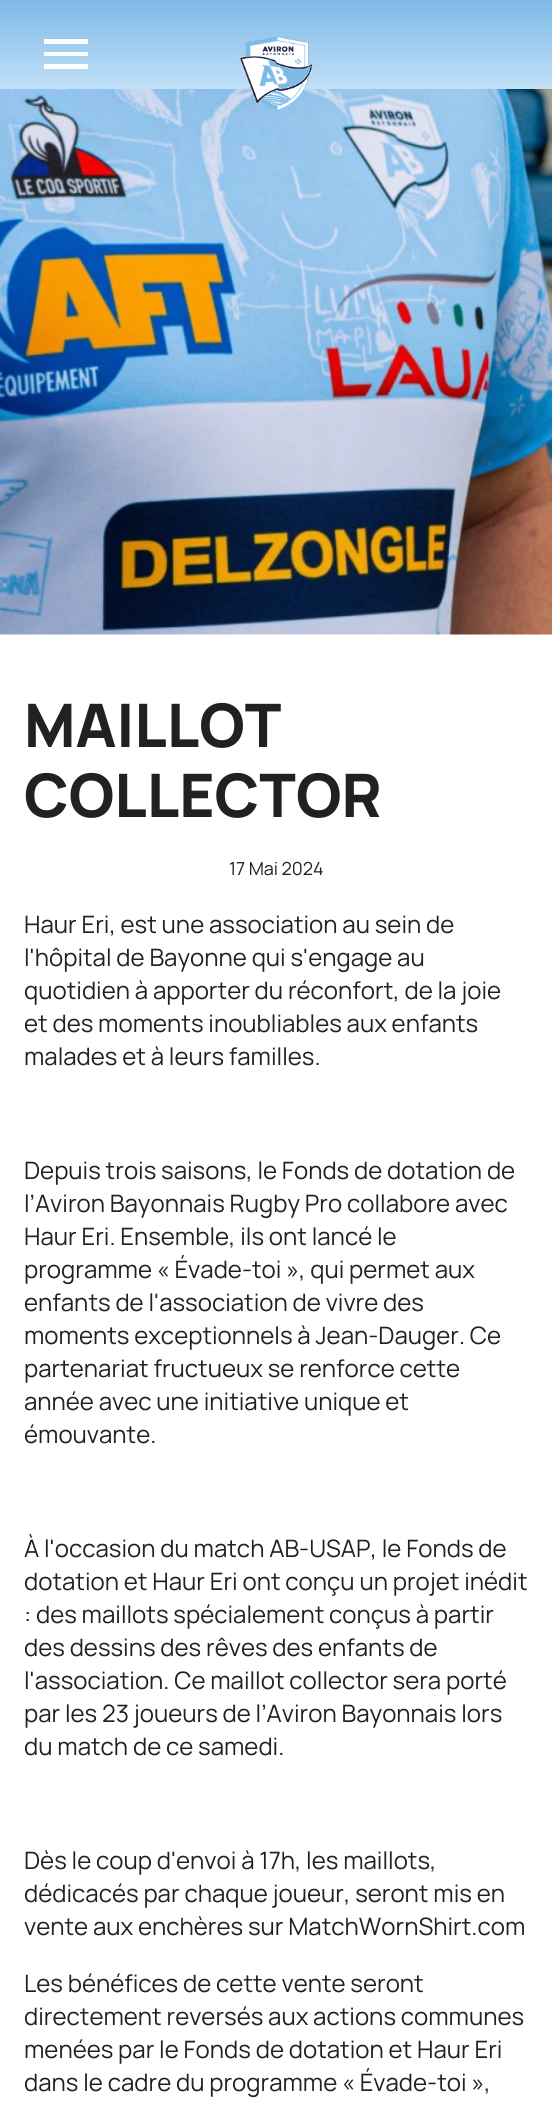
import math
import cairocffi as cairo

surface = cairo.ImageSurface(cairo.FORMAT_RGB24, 552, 2102)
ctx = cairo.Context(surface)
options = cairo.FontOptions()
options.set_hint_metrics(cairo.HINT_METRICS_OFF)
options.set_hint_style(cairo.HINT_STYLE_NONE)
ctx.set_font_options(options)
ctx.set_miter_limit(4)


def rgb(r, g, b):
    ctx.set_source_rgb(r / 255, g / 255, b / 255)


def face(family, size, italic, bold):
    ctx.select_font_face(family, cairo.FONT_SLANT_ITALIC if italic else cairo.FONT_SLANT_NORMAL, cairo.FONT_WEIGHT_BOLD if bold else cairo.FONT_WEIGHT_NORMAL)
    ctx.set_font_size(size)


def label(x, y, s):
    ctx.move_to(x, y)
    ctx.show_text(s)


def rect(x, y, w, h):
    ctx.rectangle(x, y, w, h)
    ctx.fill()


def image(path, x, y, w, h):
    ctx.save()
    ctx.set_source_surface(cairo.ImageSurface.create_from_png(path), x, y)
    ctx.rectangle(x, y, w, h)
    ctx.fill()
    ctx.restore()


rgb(255, 255, 255)
ctx.paint()
gradient = cairo.LinearGradient(276, 149, 276, 0)
gradient.add_color_stop_rgba(0.4, 0.757, 0.878, 0.969, 0)
gradient.add_color_stop_rgba(0.4, 0.757, 0.878, 0.969, 1)
gradient.add_color_stop_rgba(1, 0.494, 0.729, 0.902, 1)
ctx.set_source(gradient)
rect(0, 0, 552, 89)
rgb(255, 255, 255)
ctx.new_path()
ctx.move_to(44, 69)
ctx.line_to(88, 69)
ctx.line_to(88, 64)
ctx.line_to(44, 64)
ctx.close_path()
ctx.move_to(44, 56)
ctx.line_to(88, 56)
ctx.line_to(88, 52)
ctx.line_to(44, 52)
ctx.close_path()
ctx.move_to(44, 39)
ctx.line_to(44, 44)
ctx.line_to(88, 44)
ctx.line_to(88, 39)
ctx.close_path()
ctx.fill()
image('image1.png', 0, 89, 552, 546)
image('image0.png', 239, 36, 74, 75)
face('Manrope ExtraBold', 60, 0, 0)
rgb(33, 33, 33)
label(24, 747, 'MAILLOT')
label(24, 817, 'COLLECTOR')
face('Manrope', 18, 0, 0)
label(229, 875, '17 Mai 2024')
face('Manrope', 24, 0, 0)
label(24, 933, 'Haur Eri, est une association au sein de')
label(24, 966, 'l\'hôpital de Bayonne qui s\'engage au')
label(24, 999, 'quotidien à apporter du réconfort, de la joie')
label(24, 1032, 'et des moments inoubliables aux enfants')
label(24, 1065, 'malades et à leurs familles.')
label(24, 1179, 'Depuis trois saisons, le Fonds de dotation de')
label(24, 1212, 'l’Aviron Bayonnais Rugby Pro collabore avec')
label(24, 1245, 'Haur Eri. Ensemble, ils ont lancé le')
label(24, 1278, 'programme « Évade-toi », qui permet aux')
label(24, 1311, 'enfants de l\'association de vivre des')
label(24, 1344, 'moments exceptionnels à Jean-Dauger. Ce')
label(24, 1377, 'partenariat fructueux se renforce cette')
label(24, 1410, 'année avec une initiative unique et')
label(24, 1443, 'émouvante.')
label(24, 1557, 'À l\'occasion du match AB-USAP, le Fonds de')
label(24, 1590, 'dotation et Haur Eri ont conçu un projet inédit')
label(24, 1623, ': des maillots spécialement conçus à partir')
label(24, 1656, 'des dessins des rêves des enfants de')
label(24, 1689, 'l\'association. Ce maillot collector sera porté')
label(24, 1722, 'par les 23 joueurs de l’Aviron Bayonnais lors')
label(24, 1755, 'du match de ce samedi.')
label(24, 1869, 'Dès le coup d\'envoi à 17h, les maillots,')
label(24, 1902, 'dédicacés par chaque joueur, seront mis en')
label(24, 1935, 'vente aux enchères sur MatchWornShirt.com')
label(24, 1992, 'Les bénéfices de cette vente seront')
label(24, 2025, 'directement reversés aux actions communes')
label(24, 2058, 'menées par le Fonds de dotation et Haur Eri')
label(24, 2091, 'dans le cadre du programme « Évade-toi »,')
surface.write_to_png('render.png')
